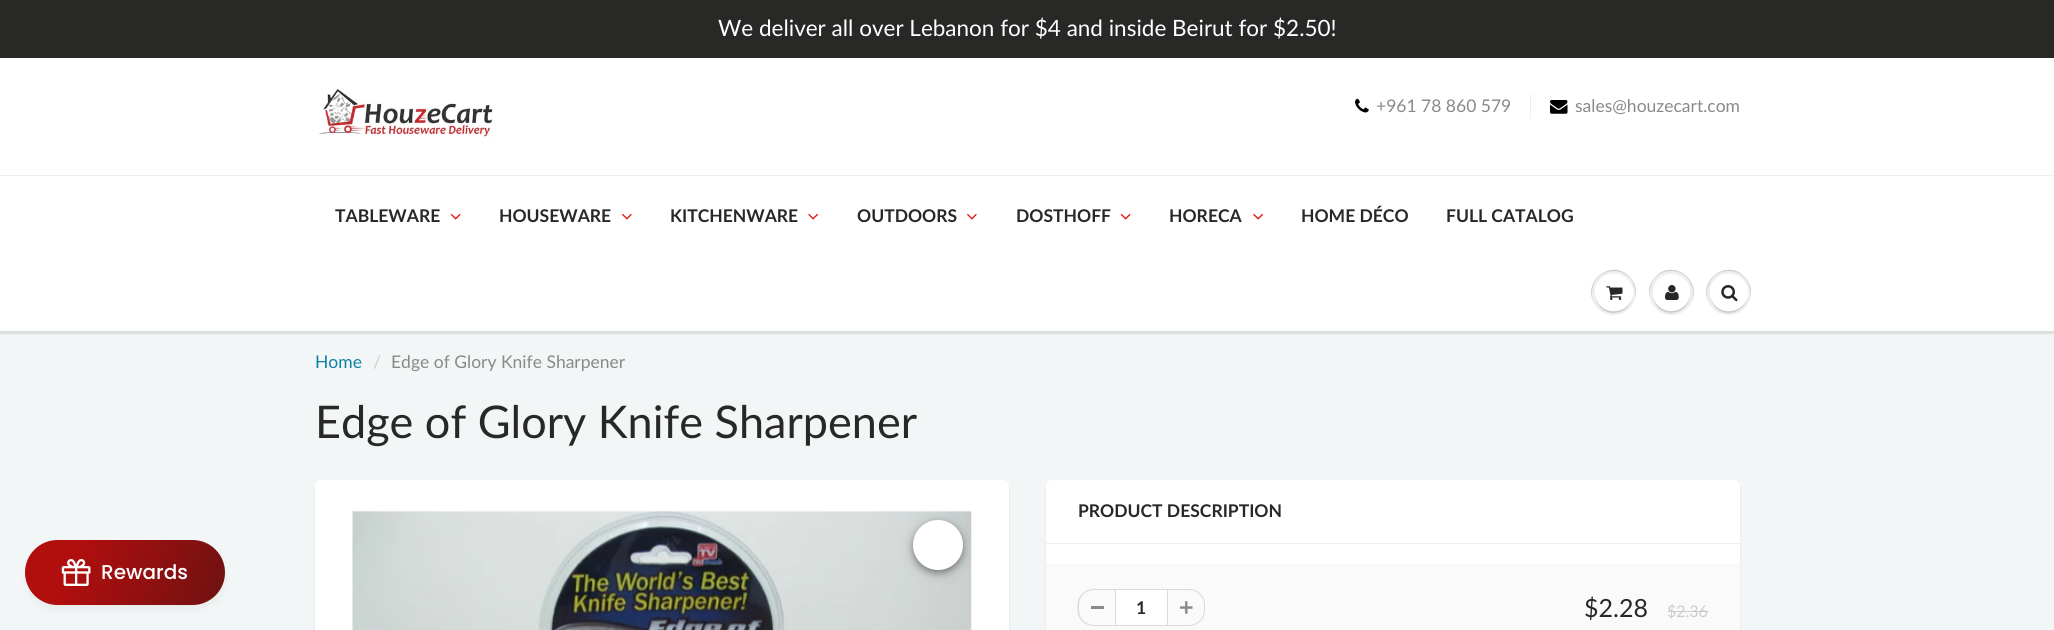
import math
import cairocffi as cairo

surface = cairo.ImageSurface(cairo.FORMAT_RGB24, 2054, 630)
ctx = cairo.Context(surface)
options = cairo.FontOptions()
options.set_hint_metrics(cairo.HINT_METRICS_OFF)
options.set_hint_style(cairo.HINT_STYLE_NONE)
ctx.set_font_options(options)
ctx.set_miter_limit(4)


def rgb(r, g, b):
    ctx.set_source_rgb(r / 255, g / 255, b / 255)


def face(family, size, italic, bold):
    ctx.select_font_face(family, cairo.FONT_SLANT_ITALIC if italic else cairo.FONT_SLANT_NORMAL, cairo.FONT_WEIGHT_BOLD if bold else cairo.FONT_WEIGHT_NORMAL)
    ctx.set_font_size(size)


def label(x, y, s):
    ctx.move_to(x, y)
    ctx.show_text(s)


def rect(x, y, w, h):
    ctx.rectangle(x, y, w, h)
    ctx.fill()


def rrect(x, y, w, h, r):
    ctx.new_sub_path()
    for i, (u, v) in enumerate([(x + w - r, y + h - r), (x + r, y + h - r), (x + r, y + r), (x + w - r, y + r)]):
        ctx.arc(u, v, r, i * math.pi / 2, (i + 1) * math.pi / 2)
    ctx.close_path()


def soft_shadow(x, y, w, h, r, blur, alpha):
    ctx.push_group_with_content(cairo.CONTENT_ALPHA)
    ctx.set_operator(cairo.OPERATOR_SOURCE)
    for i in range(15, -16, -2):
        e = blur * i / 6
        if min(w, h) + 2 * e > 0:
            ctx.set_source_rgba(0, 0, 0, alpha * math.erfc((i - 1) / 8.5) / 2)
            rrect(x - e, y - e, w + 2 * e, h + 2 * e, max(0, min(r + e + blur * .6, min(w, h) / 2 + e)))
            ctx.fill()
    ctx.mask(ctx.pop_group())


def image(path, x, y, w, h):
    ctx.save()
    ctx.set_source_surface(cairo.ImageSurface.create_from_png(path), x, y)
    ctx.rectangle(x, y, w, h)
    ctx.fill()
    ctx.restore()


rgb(255, 255, 255)
ctx.paint()
rgb(243, 246, 246)
rect(0, 331, 2054, 299)
rgb(68, 68, 68)
soft_shadow(28, 548, 195, 60, 30, 5, 0.08)
gradient = cairo.LinearGradient(26, 537, 304, 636)
gradient.add_color_stop_rgba(0.17, 0.694, 0.055, 0.055, 1)
gradient.add_color_stop_rgba(1, 0.298, 0.078, 0.078, 1)
ctx.set_source(gradient)
rrect(25, 540, 200, 65, 32.5)
ctx.fill()
image('image0.png', 61, 559, 30, 27)
face('Poppins Medium', 20, 0, 0)
rgb(255, 255, 255)
label(101, 579, 'Rewards')
rgb(40, 40, 39)
rect(0, 0, 2054, 58)
face('Lato', 22.5, 0, 0)
rgb(255, 255, 255)
label(718, 36, 'We deliver all over Lebanon for $4 and inside Beirut for $2.50!')
image('image1.png', 318, 88, 175, 52)
image('image2.png', 1355, 98, 14, 15)
face('Lato', 17.5, 0, 0)
rgb(137, 137, 137)
label(1376, 112, '+961 78 860 579')
rgb(236, 239, 239)
rect(1530, 94, 1, 25)
image('image3.png', 1550, 100, 18, 14)
rgb(137, 137, 137)
label(1575, 112, 'sales@houzecart.com')
ctx.save()
ctx.rectangle(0, 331, 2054, 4)
ctx.clip()
rgb(11, 25, 28)
soft_shadow(0, 178, 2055, 156, 0, 1, 0.12)
ctx.restore()
rgb(236, 239, 239)
rect(0, 175, 2054, 1)
face('Lato', 17.5, 0, 1)
rgb(40, 40, 39)
label(335, 222, 'TABLEWARE')
image('image4.png', 450, 213, 11, 7)
label(499, 222, 'HOUSEWARE')
image('image5.png', 622, 213, 10, 7)
label(670, 222, 'KITCHENWARE')
image('image6.png', 808, 213, 10, 7)
label(857, 222, 'OUTDOORS')
image('image5.png', 967, 213, 10, 7)
label(1016, 222, 'DOSTHOFF')
image('image4.png', 1120, 213, 11, 7)
label(1169, 222, 'HORECA')
image('image6.png', 1253, 213, 10, 7)
label(1301, 222, 'HOME DÉCO')
label(1446, 222, 'FULL CATALOG')
rgb(237, 239, 239)
ctx.new_path()
ctx.arc(1613.5, 292.5, 22.5, 0, 2 * math.pi)
ctx.fill()
rgb(201, 203, 203)
ctx.new_path()
ctx.move_to(1614, 271)
ctx.curve_to(1630, 271, 1637, 285, 1635, 298)
ctx.curve_to(1637, 292, 1636, 285, 1632, 280)
ctx.curve_to(1617, 257, 1583, 277, 1593, 301)
ctx.curve_to(1589, 288, 1596, 271, 1614, 271)
ctx.close_path()
ctx.fill()
ctx.new_path()
ctx.move_to(1595, 293)
ctx.curve_to(1595, 298.5, 1597, 303.5, 1600.5, 307.5)
ctx.curve_to(1615, 322, 1639, 305.5, 1631.5, 287)
ctx.curve_to(1637, 305, 1614.5, 319.5, 1600.5, 306)
ctx.curve_to(1597.5, 302.5, 1595, 298, 1595, 293)
ctx.close_path()
ctx.fill()
rgb(255, 255, 255)
rrect(1595, 274, 38, 37, 18.5)
ctx.fill()
ctx.new_path()
ctx.move_to(1614, 275)
ctx.curve_to(1630, 275, 1636, 292, 1630, 303)
ctx.curve_to(1644, 283, 1612, 261, 1598, 282)
ctx.curve_to(1595, 286, 1594, 292, 1596, 297)
ctx.curve_to(1594, 287, 1600, 275, 1614, 275)
ctx.close_path()
ctx.fill()
image('image7.png', 1606, 286, 17, 14)
rgb(237, 239, 239)
ctx.arc(1671.5, 292.5, 22.5, 0, 2 * math.pi)
ctx.fill()
rgb(201, 203, 203)
ctx.new_path()
ctx.move_to(1671, 271)
ctx.curve_to(1689, 271, 1696, 288, 1692, 301)
ctx.curve_to(1702, 277, 1668, 257, 1653, 280)
ctx.curve_to(1649, 285, 1648, 292, 1650, 298)
ctx.curve_to(1648, 285, 1655, 271, 1671, 271)
ctx.close_path()
ctx.fill()
ctx.new_path()
ctx.move_to(1653.5, 298)
ctx.curve_to(1657.5, 320, 1690.5, 317, 1690, 293)
ctx.curve_to(1689.5, 314, 1659.5, 318, 1653.5, 298)
ctx.close_path()
ctx.fill()
rgb(255, 255, 255)
ctx.arc(1671.5, 292.5, 18.5, 0, 2 * math.pi)
ctx.fill()
ctx.new_path()
ctx.move_to(1671, 275)
ctx.curve_to(1685, 275, 1691, 286.5, 1689.5, 297)
ctx.curve_to(1694.5, 277.5, 1668, 265, 1656, 282)
ctx.curve_to(1654, 285.5, 1653, 289, 1653, 293)
ctx.curve_to(1653, 284, 1659, 275, 1671, 275)
ctx.close_path()
ctx.fill()
image('image8.png', 1665, 285, 14, 15)
rgb(237, 239, 239)
ctx.arc(1728.5, 292.5, 22.5, 0, 2 * math.pi)
ctx.fill()
rgb(201, 203, 203)
ctx.new_path()
ctx.move_to(1729, 271)
ctx.curve_to(1745, 271, 1752, 285, 1750, 298)
ctx.curve_to(1752, 292, 1751, 285, 1747, 280)
ctx.curve_to(1732, 257, 1698, 277, 1708, 301)
ctx.curve_to(1704, 288, 1711, 271, 1729, 271)
ctx.close_path()
ctx.fill()
ctx.new_path()
ctx.move_to(1710, 293)
ctx.curve_to(1710, 298.5, 1712, 303.5, 1715.5, 307.5)
ctx.curve_to(1730, 322, 1754, 305.5, 1746.5, 287)
ctx.curve_to(1752, 305, 1729.5, 319.5, 1715.5, 306)
ctx.curve_to(1712.5, 302.5, 1710, 298, 1710, 293)
ctx.close_path()
ctx.fill()
rgb(255, 255, 255)
rrect(1710, 274, 38, 37, 18.5)
ctx.fill()
ctx.new_path()
ctx.move_to(1729, 275)
ctx.curve_to(1745, 275, 1751, 292, 1745, 303)
ctx.curve_to(1759, 283, 1727, 261, 1713, 282)
ctx.curve_to(1710, 286, 1709, 292, 1711, 297)
ctx.curve_to(1709, 287, 1715, 275, 1729, 275)
ctx.close_path()
ctx.fill()
image('image9.png', 1721, 285, 17, 17)
face('Lato', 17.5, 0, 0)
rgb(16, 127, 168)
label(315, 368, 'Home')
rgb(204, 204, 204)
label(373, 368, '/')
rgb(137, 137, 137)
label(391, 368, 'Edge of Glory Knife Sharpener')
face('Lato', 45, 0, 0)
rgb(40, 40, 39)
label(315, 438, 'Edge of Glory Knife Sharpener')
rgb(11, 25, 28)
soft_shadow(315, 483, 694, 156, 6, 1, 0.1)
rgb(255, 255, 255)
rrect(315, 480, 694, 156, 6)
ctx.fill()
image('image10.png', 352, 510, 620, 120)
rgb(0, 0, 0)
soft_shadow(913, 523, 50, 50, 25, 6, 0.22)
soft_shadow(913, 523, 50, 50, 25, 3, 0.26)
rgb(255, 255, 255)
ctx.arc(938, 545, 25, 0, 2 * math.pi)
ctx.fill()
rgb(11, 25, 28)
soft_shadow(1046, 483, 694, 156, 6, 1, 0.1)
rgb(255, 255, 255)
rrect(1046, 480, 694, 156, 6)
ctx.fill()
rgb(239, 239, 239)
rect(1046, 543, 694, 1)
face('Lato', 17.5, 0, 1)
rgb(40, 40, 39)
label(1078, 517, 'PRODUCT DESCRIPTION')
rgb(250, 250, 250)
rect(1046, 564, 694, 66)
rgb(137, 137, 137)
rect(1091, 606, 13, 3)
rgb(215, 219, 219)
ctx.set_fill_rule(cairo.FILL_RULE_EVEN_ODD)
ctx.new_path()
ctx.move_to(1094, 589)
ctx.line_to(1115, 589)
ctx.line_to(1115, 626)
ctx.line_to(1094, 626)
ctx.curve_to(1085, 626, 1077.5, 619, 1077.5, 610)
ctx.line_to(1077.5, 605)
ctx.curve_to(1077.5, 596, 1085, 589, 1094, 589)
ctx.close_path()
ctx.move_to(1094, 590)
ctx.line_to(1115, 590)
ctx.line_to(1115, 625)
ctx.line_to(1094, 625)
ctx.curve_to(1085.5, 625, 1079, 618.5, 1079, 610)
ctx.line_to(1079, 605)
ctx.curve_to(1079, 596.5, 1085.5, 590, 1094, 590)
ctx.close_path()
ctx.fill()
rgb(255, 255, 255)
ctx.rectangle(1115.5, 589.5, 52, 36)
ctx.fill_preserve()
rgb(215, 219, 219)
ctx.set_line_width(1)
ctx.stroke()
rgb(40, 40, 39)
label(1136, 614, '1')
image('image11.png', 1180, 601, 13, 13)
rgb(215, 219, 219)
ctx.new_path()
ctx.move_to(1167.5, 589)
ctx.line_to(1189, 589)
ctx.curve_to(1197.5, 589, 1205, 596, 1205, 605)
ctx.line_to(1205, 610)
ctx.curve_to(1205, 619, 1197.5, 626, 1189, 626)
ctx.line_to(1167.5, 626)
ctx.close_path()
ctx.move_to(1167.5, 590)
ctx.line_to(1189, 590)
ctx.curve_to(1197, 590, 1204, 596.5, 1204, 605)
ctx.line_to(1204, 610)
ctx.curve_to(1204, 618.5, 1197, 625, 1189, 625)
ctx.line_to(1167.5, 625)
ctx.close_path()
ctx.fill()
face('Lato', 25, 0, 0)
rgb(40, 40, 39)
label(1584, 617, '$2.28')
face('Lato', 16, 0, 0)
rgb(204, 204, 204)
label(1667, 617, '$2.36')
rect(1668, 611, 41, 1)
surface.write_to_png('render.png')
